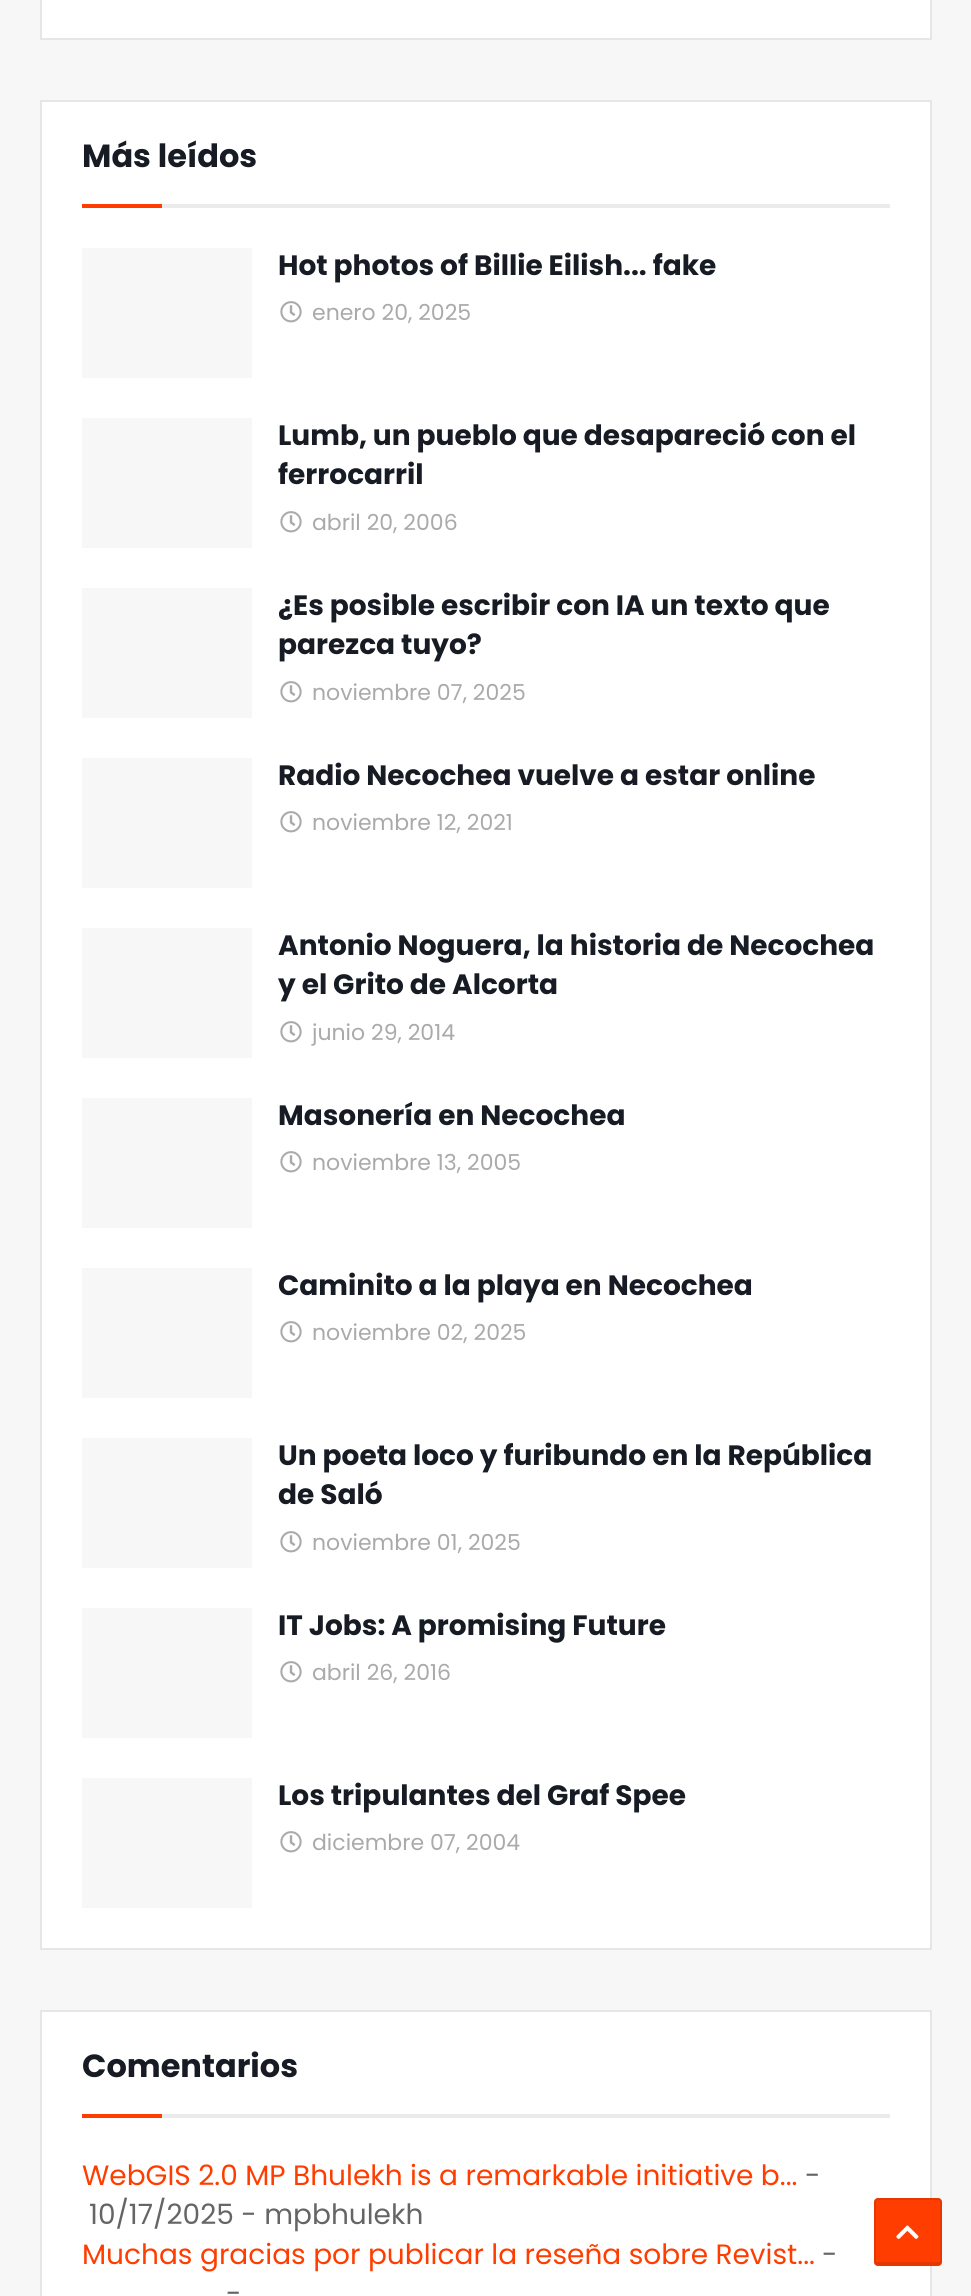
import math
import cairocffi as cairo

surface = cairo.ImageSurface(cairo.FORMAT_RGB24, 971, 2296)
ctx = cairo.Context(surface)
options = cairo.FontOptions()
options.set_hint_metrics(cairo.HINT_METRICS_OFF)
options.set_hint_style(cairo.HINT_STYLE_NONE)
ctx.set_font_options(options)
ctx.set_miter_limit(4)


def rgb(r, g, b):
    ctx.set_source_rgb(r / 255, g / 255, b / 255)


def face(family, size, italic, bold):
    ctx.select_font_face(family, cairo.FONT_SLANT_ITALIC if italic else cairo.FONT_SLANT_NORMAL, cairo.FONT_WEIGHT_BOLD if bold else cairo.FONT_WEIGHT_NORMAL)
    ctx.set_font_size(size)


def label(x, y, s):
    ctx.move_to(x, y)
    ctx.show_text(s)


def rect(x, y, w, h):
    ctx.rectangle(x, y, w, h)
    ctx.fill()


def rrect(x, y, w, h, r):
    ctx.new_sub_path()
    for i, (u, v) in enumerate([(x + w - r, y + h - r), (x + r, y + h - r), (x + r, y + r), (x + w - r, y + r)]):
        ctx.arc(u, v, r, i * math.pi / 2, (i + 1) * math.pi / 2)
    ctx.close_path()


def image(path, x, y, w, h):
    ctx.save()
    ctx.set_source_surface(cairo.ImageSurface.create_from_png(path), x, y)
    ctx.rectangle(x, y, w, h)
    ctx.fill()
    ctx.restore()


rgb(247, 247, 247)
ctx.paint()
rgb(255, 255, 255)
ctx.rectangle(41, -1, 890, 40)
ctx.fill_preserve()
rgb(230, 230, 230)
ctx.stroke()
rgb(255, 255, 255)
ctx.rectangle(41, 101, 890, 1848)
ctx.fill_preserve()
rgb(230, 230, 230)
ctx.stroke()
rgb(235, 235, 235)
rect(162, 204, 728, 4)
face('Poppins', 32, 0, 1)
rgb(23, 28, 36)
label(82, 167, 'Más leídos')
rgb(255, 61, 0)
rect(82, 204, 80, 4)
rgb(247, 247, 247)
rect(82, 248, 170, 130)
face('Poppins', 28, 0, 1)
rgb(23, 28, 36)
label(278, 275, 'Hot photos of Billie Eilish... fake')
image('image0.png', 280, 301, 22, 22)
face('Poppins', 22, 0, 0)
rgb(170, 170, 170)
label(312, 320, 'enero 20, 2025')
rgb(247, 247, 247)
rect(82, 418, 170, 130)
face('Poppins', 28, 0, 1)
rgb(23, 28, 36)
label(278, 445, 'Lumb, un pueblo que desapareció con el')
label(278, 484, 'ferrocarril')
image('image0.png', 280, 511, 22, 22)
face('Poppins', 22, 0, 0)
rgb(170, 170, 170)
label(312, 530, 'abril 20, 2006')
rgb(247, 247, 247)
rect(82, 588, 170, 130)
face('Poppins', 28, 0, 1)
rgb(23, 28, 36)
label(278, 615, '¿Es posible escribir con IA un texto que')
label(278, 654, 'parezca tuyo?')
image('image0.png', 280, 681, 22, 22)
face('Poppins', 22, 0, 0)
rgb(170, 170, 170)
label(312, 700, 'noviembre 07, 2025')
rgb(247, 247, 247)
rect(82, 758, 170, 130)
face('Poppins', 28, 0, 1)
rgb(23, 28, 36)
label(278, 785, 'Radio Necochea vuelve a estar online')
image('image0.png', 280, 811, 22, 22)
face('Poppins', 22, 0, 0)
rgb(170, 170, 170)
label(312, 830, 'noviembre 12, 2021')
rgb(247, 247, 247)
rect(82, 928, 170, 130)
face('Poppins', 28, 0, 1)
rgb(23, 28, 36)
label(278, 955, 'Antonio Noguera, la historia de Necochea')
label(278, 994, 'y el Grito de Alcorta')
image('image0.png', 280, 1021, 22, 22)
face('Poppins', 22, 0, 0)
rgb(170, 170, 170)
label(312, 1040, 'junio 29, 2014')
rgb(247, 247, 247)
rect(82, 1098, 170, 130)
face('Poppins', 28, 0, 1)
rgb(23, 28, 36)
label(278, 1125, 'Masonería en Necochea')
image('image0.png', 280, 1151, 22, 22)
face('Poppins', 22, 0, 0)
rgb(170, 170, 170)
label(312, 1170, 'noviembre 13, 2005')
rgb(247, 247, 247)
rect(82, 1268, 170, 130)
face('Poppins', 28, 0, 1)
rgb(23, 28, 36)
label(278, 1295, 'Caminito a la playa en Necochea')
image('image0.png', 280, 1321, 22, 22)
face('Poppins', 22, 0, 0)
rgb(170, 170, 170)
label(312, 1340, 'noviembre 02, 2025')
rgb(247, 247, 247)
rect(82, 1438, 170, 130)
face('Poppins', 28, 0, 1)
rgb(23, 28, 36)
label(278, 1465, 'Un poeta loco y furibundo en la República')
label(278, 1504, 'de Saló')
image('image0.png', 280, 1531, 22, 22)
face('Poppins', 22, 0, 0)
rgb(170, 170, 170)
label(312, 1550, 'noviembre 01, 2025')
rgb(247, 247, 247)
rect(82, 1608, 170, 130)
face('Poppins', 28, 0, 1)
rgb(23, 28, 36)
label(278, 1635, 'IT Jobs: A promising Future')
image('image0.png', 280, 1661, 22, 22)
face('Poppins', 22, 0, 0)
rgb(170, 170, 170)
label(312, 1680, 'abril 26, 2016')
rgb(247, 247, 247)
rect(82, 1778, 170, 130)
face('Poppins', 28, 0, 1)
rgb(23, 28, 36)
label(278, 1805, 'Los tripulantes del Graf Spee')
image('image0.png', 280, 1831, 22, 22)
face('Poppins', 22, 0, 0)
rgb(170, 170, 170)
label(312, 1850, 'diciembre 07, 2004')
rgb(255, 255, 255)
ctx.rectangle(41, 2011, 890, 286)
ctx.fill_preserve()
rgb(230, 230, 230)
ctx.stroke()
rgb(235, 235, 235)
rect(162, 2114, 728, 4)
face('Poppins', 32, 0, 1)
rgb(23, 28, 36)
label(82, 2077, 'Comentarios')
rgb(255, 61, 0)
rect(82, 2114, 80, 4)
face('Poppins', 28, 0, 0)
label(82, 2185, 'WebGIS 2.0 MP Bhulekh is a remarkable initiative b...')
rgb(101, 101, 101)
label(805, 2185, '-')
label(89, 2224, '10/17/2025 - mpbhulekh')
rgb(255, 61, 0)
label(82, 2264, 'Muchas gracias por publicar la reseña sobre Revist...')
rgb(101, 101, 101)
label(822, 2264, '-')
label(226, 2303, '-')
rgb(255, 61, 0)
rrect(874, 2198, 68, 68, 4)
ctx.fill()
rrect(875, 2199, 66, 66, 3)
ctx.set_source_rgba(0, 0, 0, 0.1)
ctx.stroke()
rect(876, 2262, 64, 2)
image('image1.png', 896, 2225, 23, 14)
surface.write_to_png('render.png')
